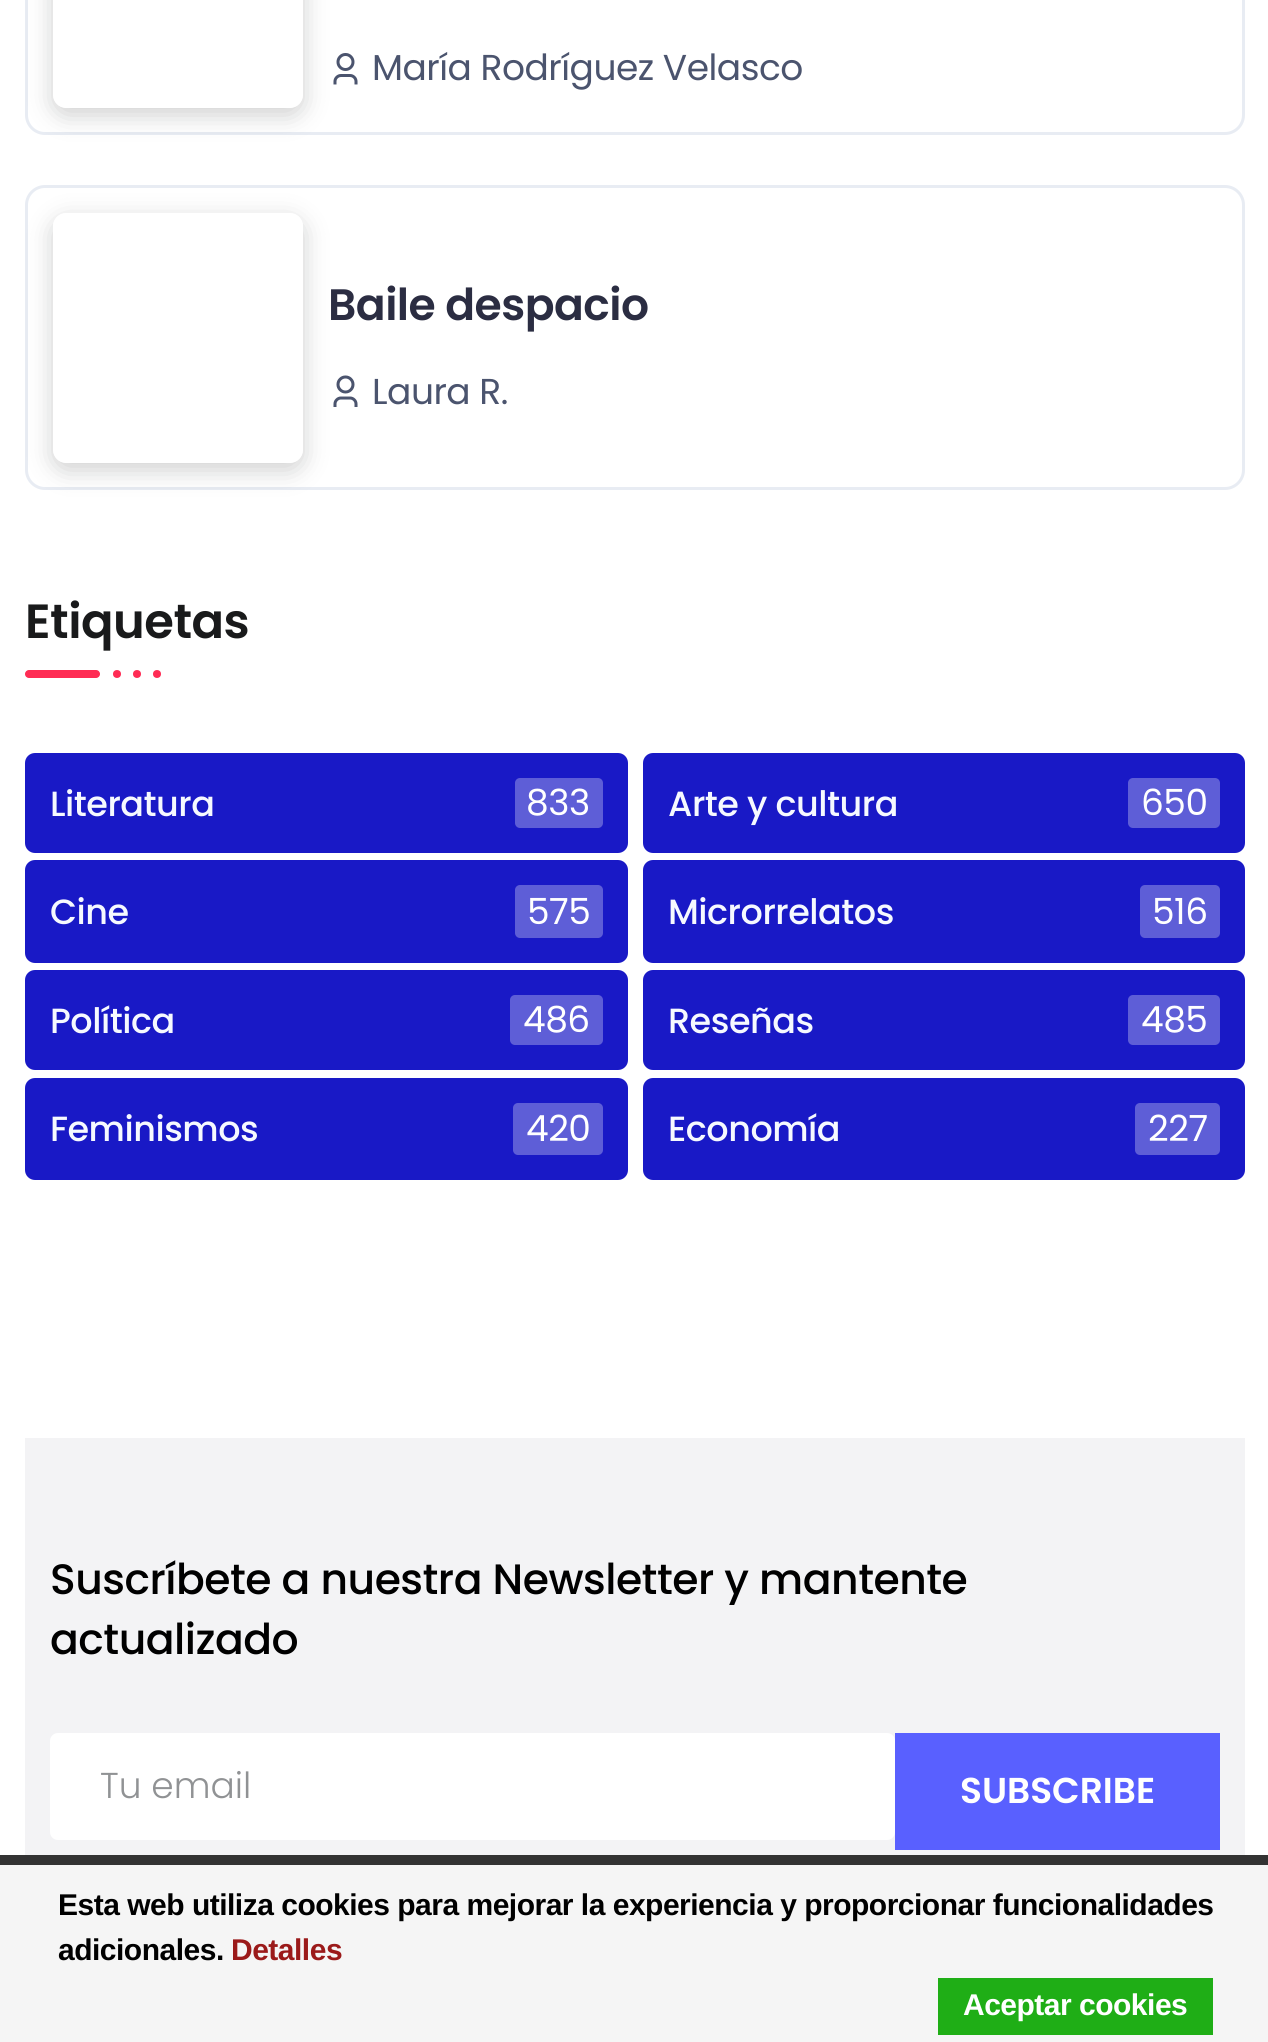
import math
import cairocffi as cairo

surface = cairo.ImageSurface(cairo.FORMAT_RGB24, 1268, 2042)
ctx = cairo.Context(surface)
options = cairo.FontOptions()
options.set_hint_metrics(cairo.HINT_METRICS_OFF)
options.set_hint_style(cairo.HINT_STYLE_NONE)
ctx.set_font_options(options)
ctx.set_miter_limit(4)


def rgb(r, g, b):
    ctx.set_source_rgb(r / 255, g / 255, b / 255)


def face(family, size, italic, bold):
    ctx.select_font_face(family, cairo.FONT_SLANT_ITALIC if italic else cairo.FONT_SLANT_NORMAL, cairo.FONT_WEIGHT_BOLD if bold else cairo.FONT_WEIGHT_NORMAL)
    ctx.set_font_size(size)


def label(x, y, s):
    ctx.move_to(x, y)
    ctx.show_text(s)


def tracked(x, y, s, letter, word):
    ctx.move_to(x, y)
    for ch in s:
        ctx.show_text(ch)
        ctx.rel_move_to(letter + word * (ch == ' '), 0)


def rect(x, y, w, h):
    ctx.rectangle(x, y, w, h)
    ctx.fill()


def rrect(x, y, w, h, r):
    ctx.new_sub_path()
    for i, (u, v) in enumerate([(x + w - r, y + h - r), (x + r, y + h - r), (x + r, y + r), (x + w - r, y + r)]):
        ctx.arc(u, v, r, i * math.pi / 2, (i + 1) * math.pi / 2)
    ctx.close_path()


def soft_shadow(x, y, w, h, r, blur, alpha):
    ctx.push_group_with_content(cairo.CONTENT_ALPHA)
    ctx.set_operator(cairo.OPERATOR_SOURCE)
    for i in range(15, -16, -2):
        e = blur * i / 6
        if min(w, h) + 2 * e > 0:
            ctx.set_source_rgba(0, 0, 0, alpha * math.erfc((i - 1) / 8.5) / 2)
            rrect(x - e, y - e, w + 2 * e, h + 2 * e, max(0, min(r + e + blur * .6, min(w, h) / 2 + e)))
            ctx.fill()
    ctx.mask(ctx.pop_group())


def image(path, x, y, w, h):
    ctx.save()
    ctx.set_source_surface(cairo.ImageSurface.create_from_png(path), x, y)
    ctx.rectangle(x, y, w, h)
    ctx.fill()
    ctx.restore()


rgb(255, 255, 255)
ctx.paint()
rrect(26.5, -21.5, 1217, 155, 18.5)
rgb(232, 236, 243)
ctx.set_line_width(3)
ctx.stroke()
ctx.save()
ctx.set_fill_rule(cairo.FILL_RULE_EVEN_ODD)
ctx.new_path()
ctx.move_to(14, 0)
ctx.line_to(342, 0)
ctx.line_to(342, 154)
ctx.line_to(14, 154)
ctx.close_path()
ctx.move_to(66, -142)
ctx.line_to(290, -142)
ctx.curve_to(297, -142, 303, -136, 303, -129)
ctx.line_to(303, 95)
ctx.curve_to(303, 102, 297, 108, 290, 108)
ctx.line_to(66, 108)
ctx.curve_to(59, 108, 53, 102, 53, 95)
ctx.line_to(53, -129)
ctx.curve_to(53, -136, 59, -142, 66, -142)
ctx.close_path()
ctx.clip()
rgb(52, 53, 54)
soft_shadow(53, -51, 250, 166, 13, 12.5, 0.24)
ctx.restore()
image('image0.png', 333, 53, 25, 32)
face('Poppins', 36, 0, 0)
rgb(75, 84, 110)
tracked(372, 80, 'María Rodríguez Velasco', -0.5, 0)
rrect(26.5, 186.5, 1217, 302, 18.5)
rgb(232, 236, 243)
ctx.stroke()
ctx.save()
ctx.set_fill_rule(cairo.FILL_RULE_EVEN_ODD)
ctx.new_path()
ctx.move_to(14, 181)
ctx.line_to(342, 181)
ctx.line_to(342, 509)
ctx.line_to(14, 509)
ctx.close_path()
ctx.move_to(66, 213)
ctx.line_to(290, 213)
ctx.curve_to(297, 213, 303, 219, 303, 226)
ctx.line_to(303, 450)
ctx.curve_to(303, 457, 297, 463, 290, 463)
ctx.line_to(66, 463)
ctx.curve_to(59, 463, 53, 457, 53, 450)
ctx.line_to(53, 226)
ctx.curve_to(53, 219, 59, 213, 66, 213)
ctx.close_path()
ctx.clip()
rgb(52, 53, 54)
soft_shadow(53, 220, 250, 250, 13, 12.5, 0.24)
ctx.restore()
face('Poppins SemiBold', 44, 0, 0)
rgb(43, 45, 66)
tracked(328, 320, 'Baile despacio', -0.5, 0)
image('image1.png', 333, 375, 25, 32)
face('Poppins', 36, 0, 0)
rgb(75, 84, 110)
tracked(372, 404, 'Laura R.', -0.5, 0)
face('Poppins SemiBold', 48, 0, 0)
rgb(25, 26, 27)
tracked(25, 638, 'Etiquetas', -0.5, 0)
rgb(255, 44, 84)
rrect(25, 670, 75, 8, 4)
ctx.fill()
ctx.arc(117, 674, 4, 0, 2 * math.pi)
ctx.fill()
ctx.arc(137, 674, 4, 0, 2 * math.pi)
ctx.fill()
ctx.arc(157, 674, 4, 0, 2 * math.pi)
ctx.fill()
rgb(25, 25, 198)
rrect(25, 753, 603, 100, 10)
ctx.fill()
face('Poppins Medium', 35, 0, 0)
rgb(246, 249, 255)
tracked(50, 816, 'Literatura', -0.5, 0)
rgb(94, 94, 215)
rrect(515, 778, 88, 50, 5)
ctx.fill()
face('Poppins', 36, 0, 0)
rgb(255, 255, 255)
tracked(526, 815, '833', -0.5, 0)
rgb(25, 25, 198)
rrect(643, 753, 602, 100, 10)
ctx.fill()
face('Poppins Medium', 35, 0, 0)
rgb(246, 249, 255)
tracked(668, 816, 'Arte y cultura', -0.5, 0)
rgb(94, 94, 215)
rrect(1128, 778, 92, 50, 5)
ctx.fill()
face('Poppins', 36, 0, 0)
rgb(255, 255, 255)
tracked(1141, 815, '650', -0.5, 0)
rgb(25, 25, 198)
rrect(25, 860, 603, 103, 10)
ctx.fill()
face('Poppins Medium', 35, 0, 0)
rgb(246, 249, 255)
tracked(50, 924, 'Cine', -0.5, 0)
rgb(94, 94, 215)
rrect(515, 885, 88, 53, 5)
ctx.fill()
face('Poppins', 36, 0, 0)
rgb(255, 255, 255)
tracked(527, 924, '575', -0.5, 0)
rgb(25, 25, 198)
rrect(643, 860, 602, 103, 10)
ctx.fill()
face('Poppins Medium', 35, 0, 0)
rgb(246, 249, 255)
tracked(668, 924, 'Microrrelatos', -0.5, 0)
rgb(94, 94, 215)
rrect(1140, 885, 80, 53, 5)
ctx.fill()
face('Poppins', 36, 0, 0)
rgb(255, 255, 255)
tracked(1152, 924, '516', -0.5, 0)
rgb(25, 25, 198)
rrect(25, 970, 603, 100, 10)
ctx.fill()
face('Poppins Medium', 35, 0, 0)
rgb(246, 249, 255)
tracked(50, 1033, 'Política', -0.5, 0)
rgb(94, 94, 215)
rrect(510, 995, 93, 50, 5)
ctx.fill()
face('Poppins', 36, 0, 0)
rgb(255, 255, 255)
tracked(523, 1032, '486', -0.5, 0)
rgb(25, 25, 198)
rrect(643, 970, 602, 100, 10)
ctx.fill()
face('Poppins Medium', 35, 0, 0)
rgb(246, 249, 255)
tracked(668, 1033, 'Reseñas', -0.5, 0)
rgb(94, 94, 215)
rrect(1128, 995, 92, 50, 5)
ctx.fill()
face('Poppins', 36, 0, 0)
rgb(255, 255, 255)
tracked(1141, 1032, '485', -0.5, 0)
rgb(25, 25, 198)
rrect(25, 1078, 603, 102, 10)
ctx.fill()
face('Poppins Medium', 35, 0, 0)
rgb(246, 249, 255)
tracked(50, 1141, 'Feminismos', -0.5, 0)
rgb(94, 94, 215)
rrect(513, 1103, 90, 52, 5)
ctx.fill()
face('Poppins', 36, 0, 0)
rgb(255, 255, 255)
tracked(526, 1141, '420', -0.5, 0)
rgb(25, 25, 198)
rrect(643, 1078, 602, 102, 10)
ctx.fill()
face('Poppins Medium', 35, 0, 0)
rgb(246, 249, 255)
tracked(668, 1141, 'Economía', -0.5, 0)
rgb(94, 94, 215)
rrect(1135, 1103, 85, 52, 5)
ctx.fill()
face('Poppins', 36, 0, 0)
rgb(255, 255, 255)
tracked(1148, 1141, '227', -0.5, 0)
rgb(243, 243, 245)
rect(25, 1438, 1220, 417)
face('Poppins Medium', 42.5, 0, 0)
rgb(0, 0, 0)
tracked(50, 1594, 'Suscríbete a nuestra Newsletter y mantente', -0.5, 0)
tracked(50, 1654, 'actualizado', -0.5, 0)
rgb(255, 255, 255)
rrect(50, 1733, 845, 107, 8)
ctx.fill()
face('Poppins Light', 36, 0, 0)
rgb(144, 146, 148)
label(100, 1798, 'Tu email')
rgb(89, 96, 255)
rect(895, 1733, 325, 117)
face('Poppins SemiBold', 36, 0, 0)
rgb(255, 255, 255)
label(960, 1803, 'SUBSCRIBE')
rgb(245, 245, 245)
rect(0, 1865, 1268, 177)
rgb(51, 51, 51)
rect(0, 1855, 1268, 10)
face('Liberation Sans', 30, 0, 1)
rgb(0, 0, 0)
tracked(58, 1915, 'Esta web utiliza cookies para mejorar la experiencia y proporcionar funcionalidades', -0.5, 0)
tracked(58, 1960, 'adicionales.', -0.5, 0)
rgb(155, 26, 26)
tracked(231, 1960, 'Detalles', -0.5, 0)
rgb(31, 174, 22)
rect(938, 1978, 275, 57)
rgb(255, 255, 255)
tracked(963, 2015, 'Aceptar cookies', -0.5, 0)
surface.write_to_png('render.png')
